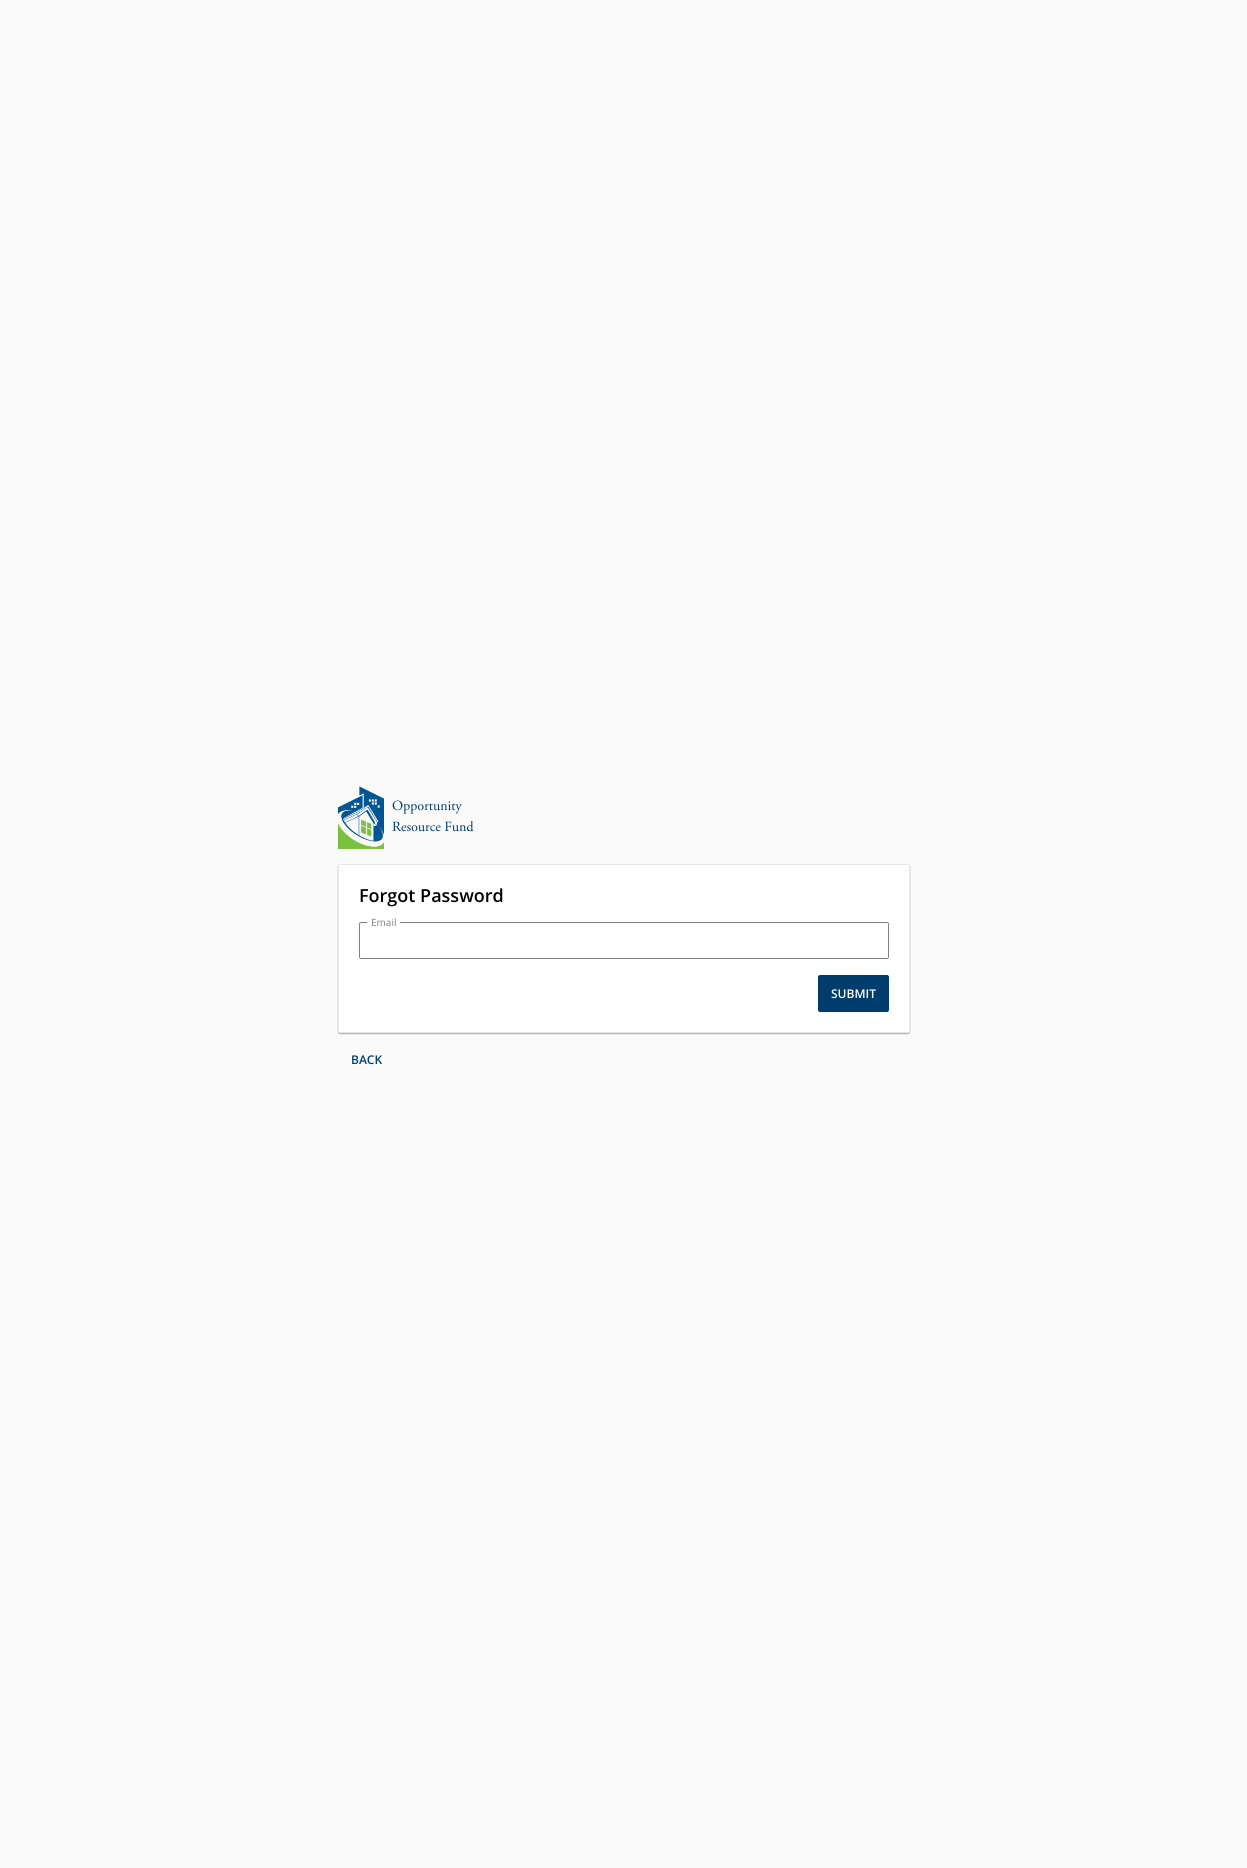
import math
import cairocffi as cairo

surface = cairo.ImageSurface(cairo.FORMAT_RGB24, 1247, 1868)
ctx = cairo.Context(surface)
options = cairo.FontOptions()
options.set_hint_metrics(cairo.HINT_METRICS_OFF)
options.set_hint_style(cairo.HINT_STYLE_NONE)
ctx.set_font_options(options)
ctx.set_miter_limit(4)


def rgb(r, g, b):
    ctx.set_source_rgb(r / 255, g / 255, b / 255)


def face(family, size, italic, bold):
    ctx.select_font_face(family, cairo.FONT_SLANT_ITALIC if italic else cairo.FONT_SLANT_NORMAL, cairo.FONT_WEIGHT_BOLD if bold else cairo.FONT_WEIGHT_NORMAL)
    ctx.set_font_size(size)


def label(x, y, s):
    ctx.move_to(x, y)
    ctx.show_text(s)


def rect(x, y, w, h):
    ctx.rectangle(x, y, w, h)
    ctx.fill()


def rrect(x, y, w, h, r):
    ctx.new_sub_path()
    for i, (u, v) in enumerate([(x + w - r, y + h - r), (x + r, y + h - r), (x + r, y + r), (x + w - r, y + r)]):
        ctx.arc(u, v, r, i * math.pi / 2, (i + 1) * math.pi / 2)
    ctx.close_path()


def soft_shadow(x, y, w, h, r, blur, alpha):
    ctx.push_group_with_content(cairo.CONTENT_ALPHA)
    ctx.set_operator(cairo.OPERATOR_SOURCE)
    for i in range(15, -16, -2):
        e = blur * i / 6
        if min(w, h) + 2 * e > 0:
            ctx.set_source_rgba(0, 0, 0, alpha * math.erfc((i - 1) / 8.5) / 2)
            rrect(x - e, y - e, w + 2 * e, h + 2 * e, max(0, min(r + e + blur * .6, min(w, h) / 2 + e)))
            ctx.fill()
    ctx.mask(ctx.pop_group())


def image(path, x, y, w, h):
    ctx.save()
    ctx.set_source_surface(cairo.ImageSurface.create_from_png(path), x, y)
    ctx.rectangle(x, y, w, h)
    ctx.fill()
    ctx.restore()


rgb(250, 250, 250)
ctx.paint()
image('image0.png', 338, 786, 46, 63)
image('image1.png', 392, 800, 70, 14)
image('image2.png', 392, 821, 82, 11)
rgb(0, 0, 0)
soft_shadow(338, 865, 572, 169, 2, 0.5, 0.3)
rgb(255, 255, 255)
rrect(338.5, 864.5, 571, 168, 1.5)
ctx.fill_preserve()
rgb(230, 230, 230)
ctx.set_line_width(1)
ctx.stroke()
face('Open Sans SemiBold', 18, 0, 0)
rgb(0, 0, 0)
label(359, 902, 'Forgot Password')
rrect(359.5, 922.5, 529, 36, 1.5)
rgb(128, 128, 128)
ctx.stroke()
rgb(255, 255, 255)
rect(367, 922, 33, 1)
face('Open Sans', 10, 0, 0)
rgb(128, 128, 128)
label(371, 926, 'Email')
rgb(0, 61, 109)
rrect(818, 975, 71, 37, 2)
ctx.fill()
face('Open Sans SemiBold', 12, 0, 0)
rgb(255, 255, 255)
label(831, 998, 'SUBMIT')
rgb(0, 61, 109)
label(351, 1064, 'BACK')
surface.write_to_png('render.png')
